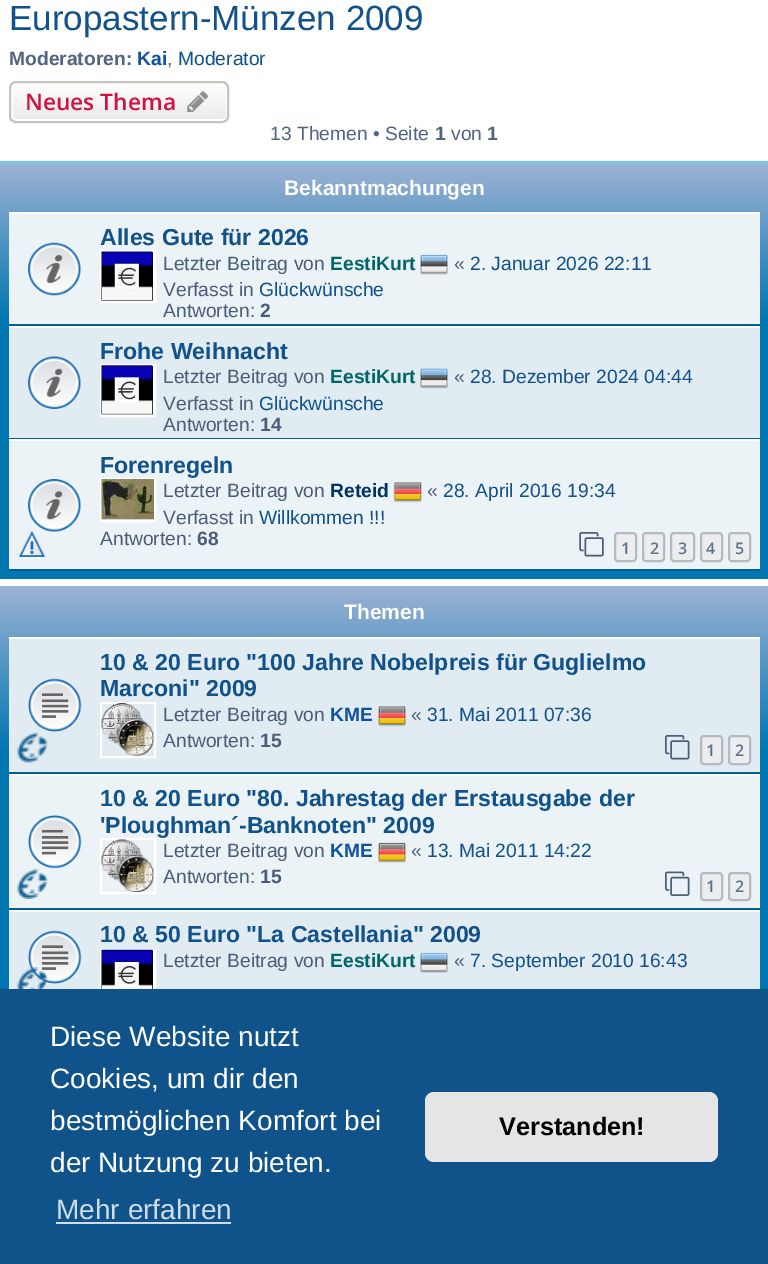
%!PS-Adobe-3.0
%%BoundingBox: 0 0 768 1264
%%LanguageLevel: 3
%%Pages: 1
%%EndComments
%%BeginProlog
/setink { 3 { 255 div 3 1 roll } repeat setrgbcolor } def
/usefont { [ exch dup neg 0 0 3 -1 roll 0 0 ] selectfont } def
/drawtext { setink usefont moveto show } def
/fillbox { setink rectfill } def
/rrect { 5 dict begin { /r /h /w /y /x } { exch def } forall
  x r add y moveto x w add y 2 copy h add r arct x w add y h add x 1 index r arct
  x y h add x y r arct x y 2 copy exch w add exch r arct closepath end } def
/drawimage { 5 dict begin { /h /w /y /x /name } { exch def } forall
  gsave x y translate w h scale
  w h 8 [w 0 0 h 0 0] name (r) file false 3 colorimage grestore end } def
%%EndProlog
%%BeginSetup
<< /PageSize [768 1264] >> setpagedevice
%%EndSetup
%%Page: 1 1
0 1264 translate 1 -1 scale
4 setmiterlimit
0 0 768 1264 255 255 255 fillbox
(Europastern-Münzen 2009) 9 30 /LiberationSans-Regular 35 16 82 137 drawtext
(Moderatoren:) 9 65 /LiberationSans-Bold 19.25 83 100 130 drawtext
(Kai) 137 65 /LiberationSans-Bold 19.25 16 80 160 drawtext
(,) 167 65 /LiberationSans-Regular 19.25 83 100 130 drawtext
(Moderator) 178 65 /LiberationSans-Regular 19.25 16 82 137 drawtext
gsave
9 81 220 42 7 rrect clip newpath
gsave 9 82 moveto 229 82 lineto 229 121 lineto 9 121 lineto closepath clip newpath
<< /ShadingType 2 /ColorSpace /DeviceRGB /Coords [119 82 119 121] /Extend [true true] /Function << /FunctionType 2 /Domain [0 1] /C0 [1 1 1] /C1 [0.914 0.914 0.914] /N 1 >> >> shfill grestore
grestore
255 255 255 setink
2 setlinewidth
12 83 215 37 4 rrect stroke
199 195 191 setink
10 82 218 40 6 rrect stroke
(Neues Thema) 25 110 /OpenSans-SemiBold 22.75 211 17 65 drawtext
(assets/img1.rgb) 187 91 21 21 drawimage
(13 Themen • Seite) 270 140 /LiberationSans-Regular 19.25 83 100 130 drawtext
(1) 435 140 /LiberationSans-Bold 19.25 83 100 130 drawtext
(von) 451 140 /LiberationSans-Regular 19.25 83 100 130 drawtext
(1) 487 140 /LiberationSans-Bold 19.25 83 100 130 drawtext
gsave 0 161 moveto 768 161 lineto 768 579 lineto 0 579 lineto closepath clip newpath
<< /ShadingType 2 /ColorSpace /DeviceRGB /Coords [384 161 384 579] /Extend [true true] /Function << /FunctionType 3 /Domain [0 1] /Functions [<< /FunctionType 2 /Domain [0 1] /C0 [0.416 0.808 1] /C1 [0.616 0.698 0.831] /N 1 >> << /FunctionType 2 /Domain [0 1] /C0 [0.616 0.698 0.831] /C1 [0 0.463 0.694] /N 1 >> << /FunctionType 2 /Domain [0 1] /C0 [0 0.463 0.694] /C1 [0 0.463 0.694] /N 1 >>] /Bounds [0.01 0.38] /Encode [0 1 0 1 0 1] >> >> shfill grestore
(Bekanntmachungen) 284 195 /LiberationSans-Bold 21 255 255 255 drawtext
9 214 751 110 236 243 247 fillbox
9 212 751 2 255 255 255 fillbox
9 324 751 2 0 96 143 fillbox
(assets/img2.rgb) 28 242 53 54 drawimage
(Alles Gute für 2026) 100 245 /LiberationSans-Bold 23.1 16 82 137 drawtext
255 255 255 setink
101 251 54 51 rectstroke
(assets/img3.rgb) 101 251 53 50 drawimage
(Letzter Beitrag von) 163 270 /LiberationSans-Regular 19.25 76 93 119 drawtext
(EestiKurt) 330 270 /LiberationSans-Bold 19.25 0 102 102 drawtext
(assets/img4.rgb) 420 254 28 21 drawimage
(«) 454 270 /LiberationSans-Regular 19.25 76 93 119 drawtext
(2. Januar 2026 22:11) 470 270 /LiberationSans-Regular 19.25 16 82 137 drawtext
(Verfasst in) 163 296 /LiberationSans-Regular 19.25 76 93 119 drawtext
(Glückwünsche) 259 296 /LiberationSans-Regular 19.25 16 82 137 drawtext
(Antworten:) 163 317 /LiberationSans-Regular 19.25 76 93 119 drawtext
(2) 260 317 /LiberationSans-Bold 19.25 76 93 119 drawtext
9 328 751 110 225 235 242 fillbox
9 326 751 2 255 255 255 fillbox
9 438 751 1 0 96 143 fillbox
(assets/img5.rgb) 28 356 53 53 drawimage
(Frohe Weihnacht) 100 359 /LiberationSans-Bold 23.1 16 82 137 drawtext
255 255 255 setink
101 365 54 51 rectstroke
(assets/img6.rgb) 101 365 53 50 drawimage
(Letzter Beitrag von) 163 383 /LiberationSans-Regular 19.25 76 93 119 drawtext
(EestiKurt) 330 383 /LiberationSans-Bold 19.25 0 102 102 drawtext
(assets/img7.rgb) 420 368 28 21 drawimage
(«) 454 383 /LiberationSans-Regular 19.25 76 93 119 drawtext
(28. Dezember 2024 04:44) 470 383 /LiberationSans-Regular 19.25 16 82 137 drawtext
(Verfasst in) 163 410 /LiberationSans-Regular 19.25 76 93 119 drawtext
(Glückwünsche) 259 410 /LiberationSans-Regular 19.25 16 82 137 drawtext
(Antworten:) 163 431 /LiberationSans-Regular 19.25 76 93 119 drawtext
(14) 260 431 /LiberationSans-Bold 19.25 76 93 119 drawtext
9 441 751 128 236 243 247 fillbox
9 439 751 2 255 255 255 fillbox
9 569 751 2 0 96 143 fillbox
(assets/img8.rgb) 28 479 53 53 drawimage
(assets/img9.rgb) 18 530 28 28 drawimage
(Forenregeln) 100 473 /LiberationSans-Bold 23.1 16 82 137 drawtext
255 255 255 setink
101 479 54 42 rectstroke
(assets/img10.rgb) 101 479 53 41 drawimage
(Letzter Beitrag von) 163 497 /LiberationSans-Regular 19.25 76 93 119 drawtext
(Reteid) 330 497 /LiberationSans-Bold 19.25 0 51 102 drawtext
(assets/img11.rgb) 393 482 29 21 drawimage
(«) 427 497 /LiberationSans-Regular 19.25 76 93 119 drawtext
(28. April 2016 19:34) 443 497 /LiberationSans-Regular 19.25 16 82 137 drawtext
(Verfasst in) 163 524 /LiberationSans-Regular 19.25 76 93 119 drawtext
(Willkommen !!!) 259 524 /LiberationSans-Regular 19.25 16 82 137 drawtext
(Antworten:) 100 545 /LiberationSans-Regular 19.25 76 93 119 drawtext
(68) 197 545 /LiberationSans-Bold 19.25 76 93 119 drawtext
(assets/img12.rgb) 579 532 25 25 drawimage
236 237 238 setink
615 533 21 28 3 rrect gsave fill grestore
180 186 192 setink
stroke
(1) 621 554 /OpenSans-SemiBold 16 92 117 140 drawtext
236 237 238 setink
643 533 21 28 3 rrect gsave fill grestore
180 186 192 setink
stroke
(2) 650 554 /OpenSans-SemiBold 16 92 117 140 drawtext
236 237 238 setink
671 533 23 28 3 rrect gsave fill grestore
180 186 192 setink
stroke
(3) 678 554 /OpenSans-SemiBold 16 92 117 140 drawtext
236 237 238 setink
701 533 21 28 3 rrect gsave fill grestore
180 186 192 setink
stroke
(4) 706 554 /OpenSans-SemiBold 16 92 117 140 drawtext
236 237 238 setink
729 533 21 28 3 rrect gsave fill grestore
180 186 192 setink
stroke
(5) 735 554 /OpenSans-SemiBold 16 92 117 140 drawtext
gsave 0 586 moveto 768 586 lineto 768 989 lineto 0 989 lineto closepath clip newpath
<< /ShadingType 2 /ColorSpace /DeviceRGB /Coords [384 586 384 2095] /Extend [true true] /Function << /FunctionType 3 /Domain [0 1] /Functions [<< /FunctionType 2 /Domain [0 1] /C0 [0.616 0.698 0.831] /C1 [0 0.463 0.694] /N 1 >> << /FunctionType 2 /Domain [0 1] /C0 [0 0.463 0.694] /C1 [0 0.463 0.694] /N 1 >>] /Bounds [0.11] /Encode [0 1 0 1] >> >> shfill grestore
(Themen) 344 619 /LiberationSans-Bold 21 255 255 255 drawtext
9 639 751 133 225 235 242 fillbox
9 637 751 2 255 255 255 fillbox
9 772 751 2 0 96 143 fillbox
(assets/img13.rgb) 28 678 54 54 drawimage
(assets/img14.rgb) 17 732 31 31 drawimage
(10 & 20 Euro "100 Jahre Nobelpreis für Guglielmo) 100 670 /LiberationSans-Bold 23.1 16 82 137 drawtext
(Marconi" 2009) 100 696 /LiberationSans-Bold 23.1 16 82 137 drawtext
255 255 255 setink
101 703 54 54 rectstroke
(assets/img15.rgb) 101 703 53 53 drawimage
(Letzter Beitrag von) 163 721 /LiberationSans-Regular 19.25 76 93 119 drawtext
(KME) 330 721 /LiberationSans-Bold 19.25 16 80 160 drawtext
(assets/img16.rgb) 378 706 28 21 drawimage
(«) 411 721 /LiberationSans-Regular 19.25 76 93 119 drawtext
(31. Mai 2011 07:36) 427 721 /LiberationSans-Regular 19.25 16 82 137 drawtext
(Antworten:) 163 747 /LiberationSans-Regular 19.25 76 93 119 drawtext
(15) 260 747 /LiberationSans-Bold 19.25 76 93 119 drawtext
(assets/img17.rgb) 665 735 25 25 drawimage
236 237 238 setink
701 736 21 28 3 rrect gsave fill grestore
180 186 192 setink
stroke
(1) 706 756 /OpenSans-SemiBold 16 92 117 140 drawtext
236 237 238 setink
729 736 21 28 3 rrect gsave fill grestore
180 186 192 setink
stroke
(2) 735 756 /OpenSans-SemiBold 16 92 117 140 drawtext
9 776 751 132 236 243 247 fillbox
9 774 751 2 255 255 255 fillbox
9 908 751 2 0 96 143 fillbox
(assets/img18.rgb) 28 815 54 54 drawimage
(assets/img19.rgb) 17 869 31 30 drawimage
(10 & 20 Euro "80. Jahrestag der Erstausgabe der) 100 806 /LiberationSans-Bold 23.1 16 82 137 drawtext
('Ploughman´-Banknoten" 2009) 100 833 /LiberationSans-Bold 23.1 16 82 137 drawtext
255 255 255 setink
101 839 54 54 rectstroke
(assets/img20.rgb) 101 839 53 53 drawimage
(Letzter Beitrag von) 163 857 /LiberationSans-Regular 19.25 76 93 119 drawtext
(KME) 330 857 /LiberationSans-Bold 19.25 16 80 160 drawtext
(assets/img21.rgb) 378 842 28 21 drawimage
(«) 411 857 /LiberationSans-Regular 19.25 76 93 119 drawtext
(13. Mai 2011 14:22) 427 857 /LiberationSans-Regular 19.25 16 82 137 drawtext
(Antworten:) 163 883 /LiberationSans-Regular 19.25 76 93 119 drawtext
(15) 260 883 /LiberationSans-Bold 19.25 76 93 119 drawtext
(assets/img22.rgb) 665 871 25 25 drawimage
236 237 238 setink
701 873 21 27 3 rrect gsave fill grestore
180 186 192 setink
stroke
(1) 706 892 /OpenSans-SemiBold 16 92 117 140 drawtext
236 237 238 setink
729 873 21 27 3 rrect gsave fill grestore
180 186 192 setink
stroke
(2) 735 892 /OpenSans-SemiBold 16 92 117 140 drawtext
9 912 751 77 225 235 242 fillbox
9 910 751 2 255 255 255 fillbox
(assets/img13.rgb) 28 930 54 54 drawimage
(assets/img23.rgb) 17 967 31 22 drawimage
(10 & 50 Euro "La Castellania" 2009) 100 942 /LiberationSans-Bold 23.1 16 82 137 drawtext
255 255 255 setink
101 950 54 50 rectstroke
(assets/img24.rgb) 101 949 53 40 drawimage
(Letzter Beitrag von) 163 967 /LiberationSans-Regular 19.25 76 93 119 drawtext
(EestiKurt) 330 967 /LiberationSans-Bold 19.25 0 102 102 drawtext
(assets/img25.rgb) 420 952 28 21 drawimage
(«) 454 967 /LiberationSans-Regular 19.25 76 93 119 drawtext
(7. September 2010 16:43) 470 967 /LiberationSans-Regular 19.25 16 82 137 drawtext
0 989 768 275 15 83 138 fillbox
(Diese Website nutzt) 50 1046 /LiberationSans-Regular 28 255 255 255 drawtext
(Cookies, um dir den) 50 1088 /LiberationSans-Regular 28 255 255 255 drawtext
(bestmöglichen Komfort bei) 50 1130 /LiberationSans-Regular 28 255 255 255 drawtext
(der Nutzung zu bieten.) 50 1172 /LiberationSans-Regular 28 255 255 255 drawtext
(Mehr erfahren) 56 1219 /LiberationSans-Regular 28 207 221 232 drawtext
56 1222 175 2 207 221 232 fillbox
229 229 229 setink
425 1092 293 70 9 rrect fill
(Verstanden!) 499 1135 /LiberationSans-Bold 25.25 0 0 0 drawtext
showpage
%%EOF
